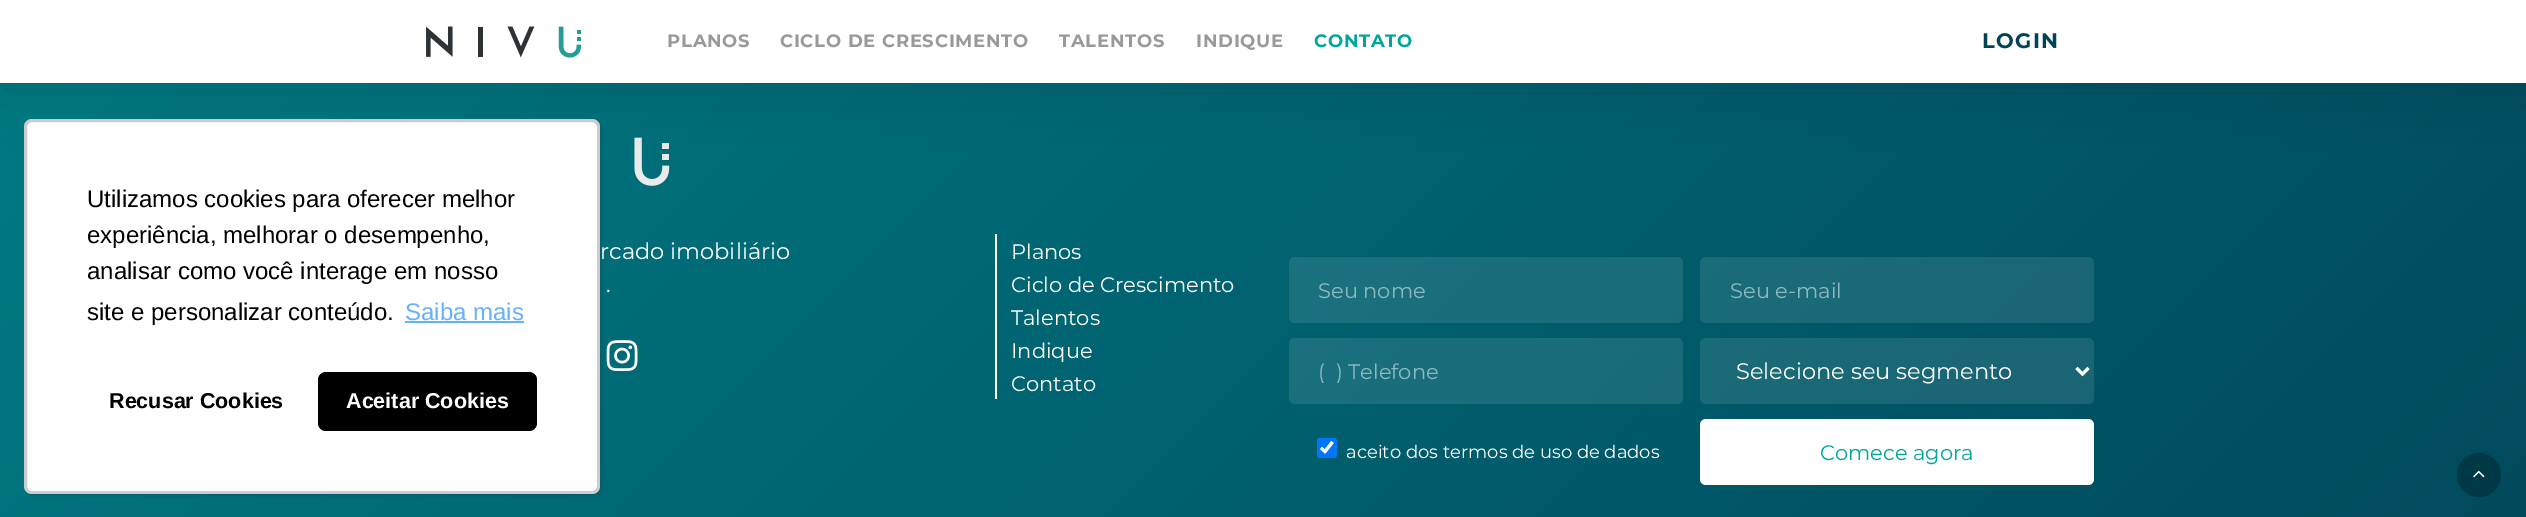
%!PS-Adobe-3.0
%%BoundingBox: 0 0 2526 517
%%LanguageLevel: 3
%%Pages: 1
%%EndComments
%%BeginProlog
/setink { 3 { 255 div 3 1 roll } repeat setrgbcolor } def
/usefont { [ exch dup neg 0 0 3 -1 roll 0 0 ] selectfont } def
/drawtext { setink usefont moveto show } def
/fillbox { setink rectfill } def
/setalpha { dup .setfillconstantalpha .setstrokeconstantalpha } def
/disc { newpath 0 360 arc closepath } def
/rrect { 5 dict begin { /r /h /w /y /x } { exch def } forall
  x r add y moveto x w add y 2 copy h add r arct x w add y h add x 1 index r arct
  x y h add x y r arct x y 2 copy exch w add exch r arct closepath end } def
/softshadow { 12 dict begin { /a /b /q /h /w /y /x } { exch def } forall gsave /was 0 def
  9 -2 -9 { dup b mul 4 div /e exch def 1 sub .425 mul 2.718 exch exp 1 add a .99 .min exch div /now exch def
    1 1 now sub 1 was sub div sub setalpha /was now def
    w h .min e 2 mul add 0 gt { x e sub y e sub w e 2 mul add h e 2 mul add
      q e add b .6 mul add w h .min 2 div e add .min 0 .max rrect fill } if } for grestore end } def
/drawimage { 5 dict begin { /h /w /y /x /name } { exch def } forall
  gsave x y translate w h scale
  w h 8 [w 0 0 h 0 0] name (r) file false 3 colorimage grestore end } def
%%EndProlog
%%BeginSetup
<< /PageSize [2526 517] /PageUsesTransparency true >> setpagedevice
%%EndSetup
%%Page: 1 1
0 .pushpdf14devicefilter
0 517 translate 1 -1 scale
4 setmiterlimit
0 0 2526 517 255 255 255 fillbox
gsave 0 83 moveto 2526 83 lineto 2526 517 lineto 0 517 lineto closepath clip newpath
<< /ShadingType 2 /ColorSpace /DeviceRGB /Coords [383 -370 2143 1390] /Extend [true true] /Function << /FunctionType 2 /Domain [0 1] /C0 [0 0.482 0.518] /C1 [0 0.259 0.337] /N 1 >> >> shfill grestore
(assets/img3.rgb) 606 340 32 31 drawimage
0 0 0 setink
26 122 576 375 8 3 0.1 softshadow
(assets/img2.rgb) 634 137 36 49 drawimage
0 5 2526 82 0 34 0.15 softshadow
255 255 255 setink
24 119 576 375 8 rrect fill
0.2 setalpha
0 0 0 setink
3 setlinewidth
25.5 120.5 573 372 6.5 rrect stroke
1 setalpha
(Utilizamos cookies para oferecer melhor) 87 207 /LiberationSans-Regular 24 0 0 0 drawtext
(experiência, melhorar o desempenho,) 87 243 /LiberationSans-Regular 24 0 0 0 drawtext
(analisar como você interage em nosso) 87 279 /LiberationSans-Regular 24 0 0 0 drawtext
(site e personalizar conteúdo.) 87 320 /LiberationSans-Regular 24 0 0 0 drawtext
(Saiba mais) 405 320 /LiberationSans-Regular 24 102 176 255 drawtext
405 321 119 2 102 176 255 fillbox
(Recusar Cookies) 109 408 /LiberationSans-Bold 21.5 0 0 0 drawtext
318 372 219 59 8 rrect fill
(Aceitar Cookies) 346 408 /LiberationSans-Bold 21.5 255 255 255 drawtext
0 0 2526 83 255 255 255 fillbox
(assets/img1.rgb) 426 26 156 32 drawimage
/Montserrat-Bold 18 usefont
153 153 153 setink
667 47 moveto 0.75 0 (PLANOS) ashow
780 47 moveto 0.75 0 (CICLO DE CRESCIMENTO) ashow
1059 47 moveto 0.75 0 (TALENTOS) ashow
1196 47 moveto 0.75 0 (INDIQUE) ashow
0 166 156 setink
1314 47 moveto 0.75 0 (CONTATO) ashow
/Montserrat-Bold 21 usefont
0 66 86 setink
1982 48 moveto 1.5 0 (LOGIN) ashow
(rcado imobiliário) 600 259 /Montserrat-Regular 22.5 255 255 255 drawtext
(.) 606 292 /Montserrat-Regular 22.5 255 255 255 drawtext
995 234 2 165 255 255 255 fillbox
(Planos) 1011 259 /Montserrat-Regular 21 255 255 255 drawtext
(Ciclo de Crescimento) 1011 292 /Montserrat-Regular 21 255 255 255 drawtext
(Talentos) 1011 325 /Montserrat-Regular 21 255 255 255 drawtext
(Indique) 1011 358 /Montserrat-Regular 21 255 255 255 drawtext
(Contato) 1011 391 /Montserrat-Regular 21 255 255 255 drawtext
0.1 setalpha
1289 257 394 66 6 rrect fill
1 setalpha
(Seu nome) 1318 298 /Montserrat-Regular 21 140 184 190 drawtext
0.1 setalpha
255 255 255 setink
1700 257 394 66 6 rrect fill
1 setalpha
(Seu e-mail) 1730 298 /Montserrat-Regular 21 140 184 190 drawtext
0.1 setalpha
255 255 255 setink
1289 338 394 66 6 rrect fill
1 setalpha
(\(  \) Telefone) 1318 379 /Montserrat-Regular 21 140 184 190 drawtext
0.1 setalpha
255 255 255 setink
1700 338 394 66 6 rrect fill
1 setalpha
2076.5 368 moveto 2082.5 374 lineto 2088.5 368 lineto stroke
(Selecione seu segmento) 1736 379 /Montserrat-Regular 22.5 255 255 255 drawtext
0 117 255 setink
1317 438 20 20 3 rrect fill
255 255 255 setink
3.1 setlinewidth
1321 448 moveto 1325 451.5 lineto 1332.5 442 lineto stroke
(aceito dos termos de uso de dados) 1346 458 /Montserrat-Regular 18 255 255 255 drawtext
1700 419 394 66 6 rrect fill
(Comece agora) 1820 460 /Montserrat-Regular 21 0 166 156 drawtext
0 57 70 setink
2479 475 22 disc fill
(assets/img4.rgb) 2473 470 12 8 drawimage
.poppdf14devicefilter showpage
%%EOF
